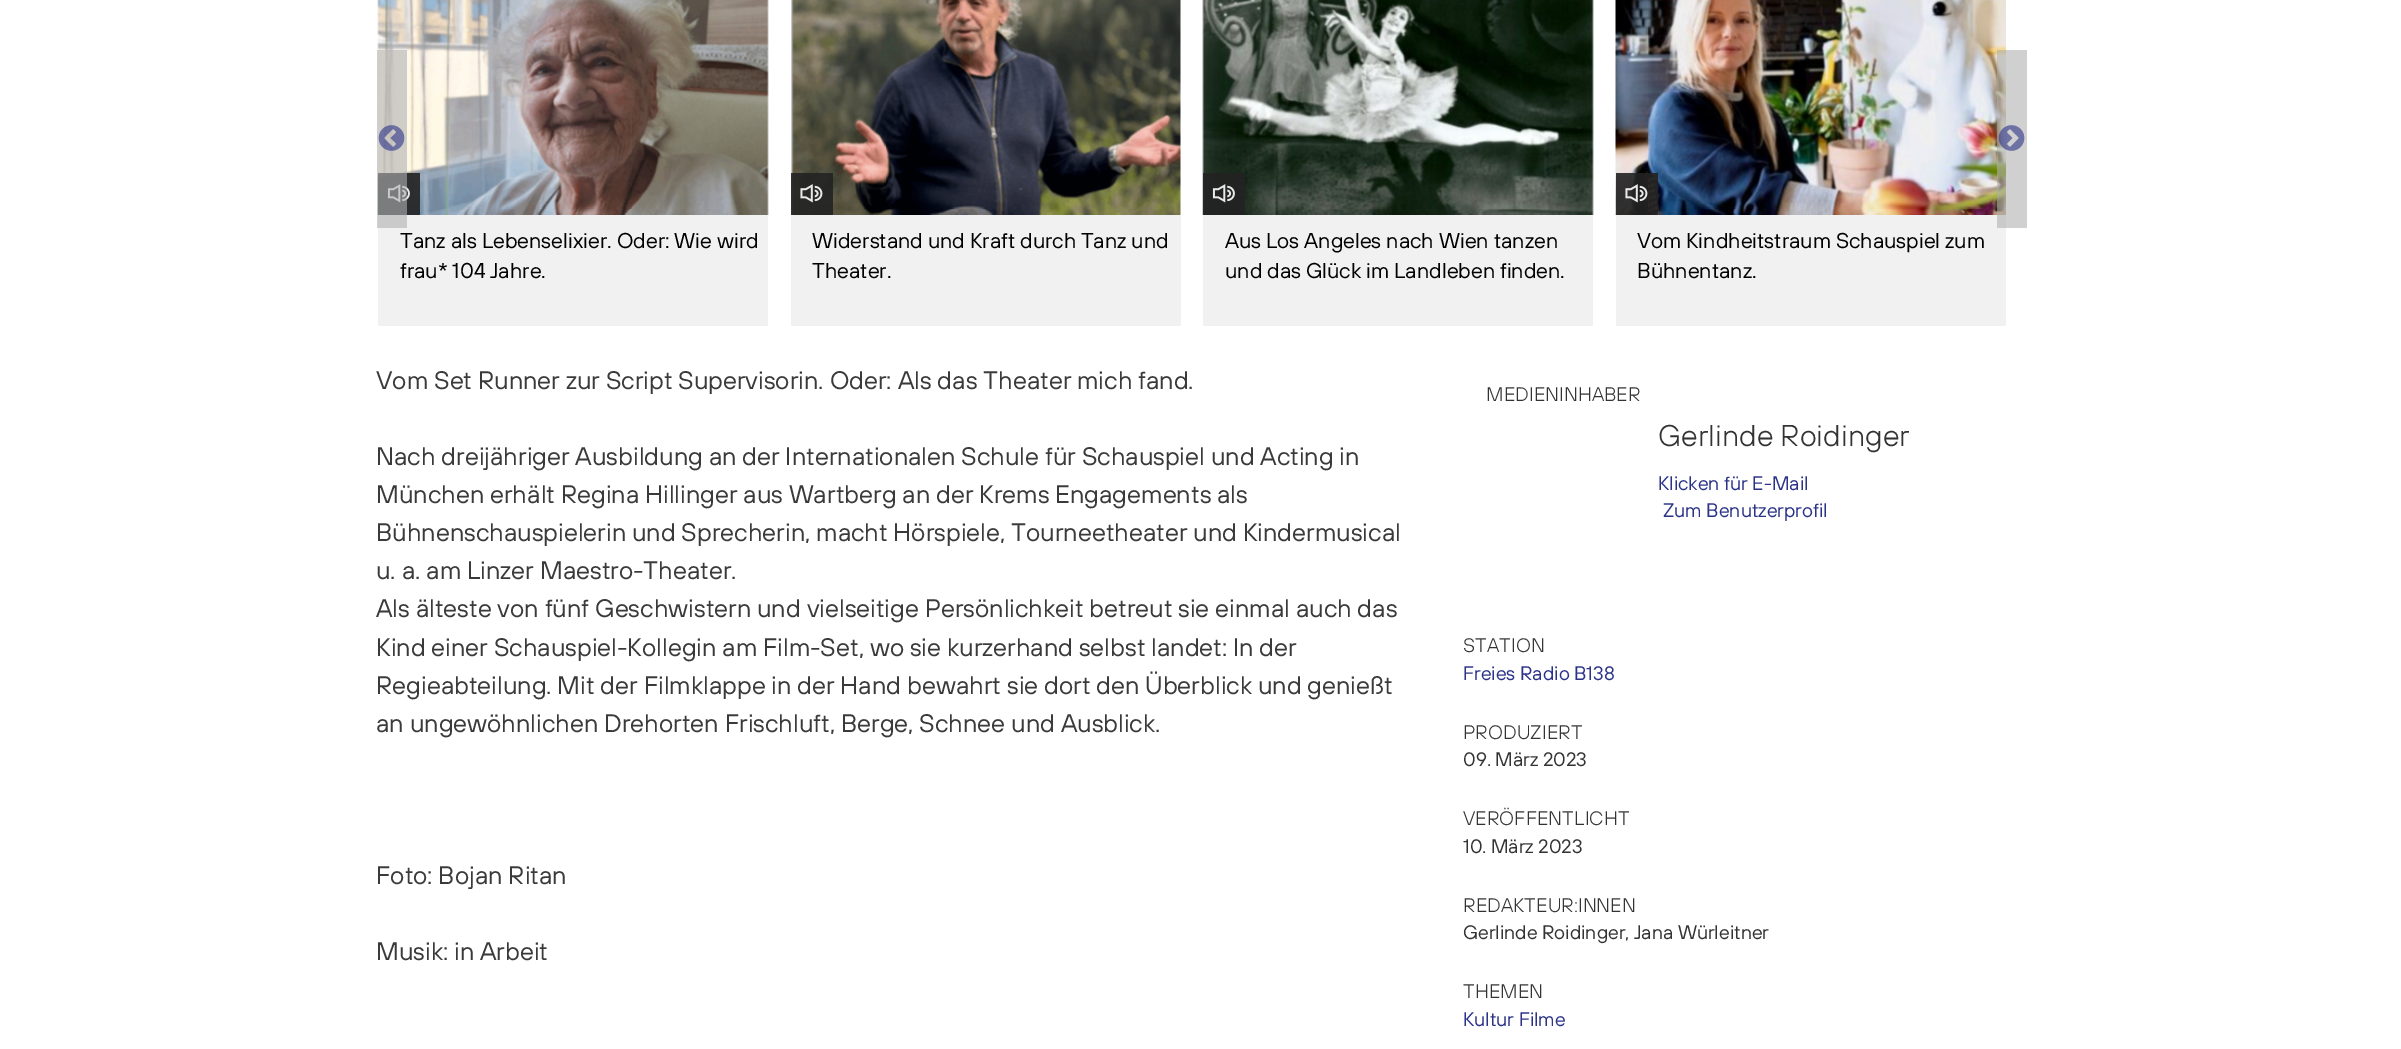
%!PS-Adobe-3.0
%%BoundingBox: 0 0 2401 1049
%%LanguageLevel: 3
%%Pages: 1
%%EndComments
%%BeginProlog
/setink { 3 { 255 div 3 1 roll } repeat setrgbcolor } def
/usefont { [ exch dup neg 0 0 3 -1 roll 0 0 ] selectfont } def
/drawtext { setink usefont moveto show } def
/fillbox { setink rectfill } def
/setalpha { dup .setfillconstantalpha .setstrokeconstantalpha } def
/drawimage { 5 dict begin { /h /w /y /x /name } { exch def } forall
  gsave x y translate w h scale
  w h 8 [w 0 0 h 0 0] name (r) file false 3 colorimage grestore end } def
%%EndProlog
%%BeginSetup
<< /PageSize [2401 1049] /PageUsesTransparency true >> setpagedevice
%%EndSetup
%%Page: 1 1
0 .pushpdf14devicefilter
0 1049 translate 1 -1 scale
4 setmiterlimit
0 0 2401 1049 255 255 255 fillbox
(assets/img3.rgb) 377 0 392 215 drawimage
0.9 setalpha
378 173 42 42 34 34 34 fillbox
1 setalpha
(assets/img4.rgb) 387 184 23 19 drawimage
378 215 390 111 241 241 241 fillbox
0.6 setalpha
377 50 30 178 176 176 176 fillbox
1 setalpha
(assets/img1.rgb) 378 125 27 26 drawimage
(assets/img9.rgb) 1615 0 391 215 drawimage
1616 215 390 111 241 241 241 fillbox
0.6 setalpha
1997 50 30 178 176 176 176 fillbox
1 setalpha
(assets/img2.rgb) 1998 125 27 26 drawimage
(Tanz als Lebenselixier. Oder: Wie wird) 400 248 /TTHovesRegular-Regular 21.5 0 0 0 drawtext
(frau* 104 Jahre.) 400 278 /TTHovesRegular-Regular 21.5 0 0 0 drawtext
791 0 3 215 230 230 230 fillbox
(assets/img5.rgb) 791 0 390 215 drawimage
0.9 setalpha
791 173 42 42 34 34 34 fillbox
1 setalpha
(assets/img6.rgb) 800 184 23 19 drawimage
791 215 390 111 241 241 241 fillbox
(Widerstand und Kraft durch Tanz und) 812 248 /TTHovesRegular-Regular 21.5 0 0 0 drawtext
(Theater.) 812 278 /TTHovesRegular-Regular 21.5 0 0 0 drawtext
(assets/img7.rgb) 1202 0 392 215 drawimage
0.9 setalpha
1203 173 42 42 34 34 34 fillbox
1 setalpha
(assets/img8.rgb) 1212 184 23 19 drawimage
1203 215 390 111 241 241 241 fillbox
(Aus Los Angeles nach Wien tanzen) 1225 248 /TTHovesRegular-Regular 21.5 0 0 0 drawtext
(und das Glück im Landleben finden.) 1225 278 /TTHovesRegular-Regular 21.5 0 0 0 drawtext
0.9 setalpha
1616 173 42 42 34 34 34 fillbox
1 setalpha
(assets/img10.rgb) 1625 184 23 19 drawimage
(Vom Kindheitstraum Schauspiel zum) 1637 248 /TTHovesRegular-Regular 21.5 0 0 0 drawtext
(Bühnentanz.) 1637 278 /TTHovesRegular-Regular 21.5 0 0 0 drawtext
(Vom Set Runner zur Script Supervisorin. Oder: Als das Theater mich fand.) 376 389 /TTHovesRegular-Regular 25.35 58 58 58 drawtext
(Nach dreijähriger Ausbildung an der Internationalen Schule für Schauspiel und Acting in) 376 465 /TTHovesRegular-Regular 25.35 58 58 58 drawtext
(München erhält Regina Hillinger aus Wartberg an der Krems Engagements als) 376 503 /TTHovesRegular-Regular 25.35 58 58 58 drawtext
(Bühnenschauspielerin und Sprecherin, macht Hörspiele, Tourneetheater und Kindermusical) 376 541 /TTHovesRegular-Regular 25.35 58 58 58 drawtext
(u. a. am Linzer Maestro-Theater.) 376 579 /TTHovesRegular-Regular 25.35 58 58 58 drawtext
(Als älteste von fünf Geschwistern und vielseitige Persönlichkeit betreut sie einmal auch das) 376 617 /TTHovesRegular-Regular 25.35 58 58 58 drawtext
(Kind einer Schauspiel-Kollegin am Film-Set, wo sie kurzerhand selbst landet: In der) 376 656 /TTHovesRegular-Regular 25.35 58 58 58 drawtext
(Regieabteilung. Mit der Filmklappe in der Hand bewahrt sie dort den Überblick und genießt) 376 694 /TTHovesRegular-Regular 25.35 58 58 58 drawtext
(an ungewöhnlichen Drehorten Frischluft, Berge, Schnee und Ausblick.) 376 732 /TTHovesRegular-Regular 25.35 58 58 58 drawtext
(Foto: Bojan Ritan) 376 884 /TTHovesRegular-Regular 25.35 58 58 58 drawtext
(Musik: in Arbeit) 376 960 /TTHovesRegular-Regular 25.35 58 58 58 drawtext
(MEDIENINHABER) 1486 401 /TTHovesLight-Regular 19.5 51 51 51 drawtext
(Gerlinde Roidinger) 1658 446 /TTHovesLight-Regular 30 51 51 51 drawtext
(Klicken für E-Mail) 1658 490 /TTHovesRegular-Regular 19.5 43 50 135 drawtext
(Zum Benutzerprofil) 1663 517 /TTHovesRegular-Regular 19.5 43 50 135 drawtext
(STATION) 1463 652 /TTHovesLight-Regular 19.5 51 51 51 drawtext
(Freies Radio B138) 1463 680 /TTHovesRegular-Regular 19.5 43 50 135 drawtext
(PRODUZIERT) 1463 739 /TTHovesLight-Regular 19.5 51 51 51 drawtext
(09. März 2023) 1463 766 /TTHovesRegular-Regular 19.5 51 51 51 drawtext
(VERÖFFENTLICHT) 1463 825 /TTHovesLight-Regular 19.5 51 51 51 drawtext
(10. März 2023) 1463 853 /TTHovesRegular-Regular 19.5 51 51 51 drawtext
(REDAKTEUR:INNEN) 1463 912 /TTHovesLight-Regular 19.5 51 51 51 drawtext
(Gerlinde Roidinger, Jana Würleitner) 1463 939 /TTHovesRegular-Regular 19.5 51 51 51 drawtext
(THEMEN) 1463 998 /TTHovesLight-Regular 19.5 51 51 51 drawtext
(Kultur Filme) 1463 1026 /TTHovesRegular-Regular 19.5 43 50 135 drawtext
.poppdf14devicefilter showpage
%%EOF
